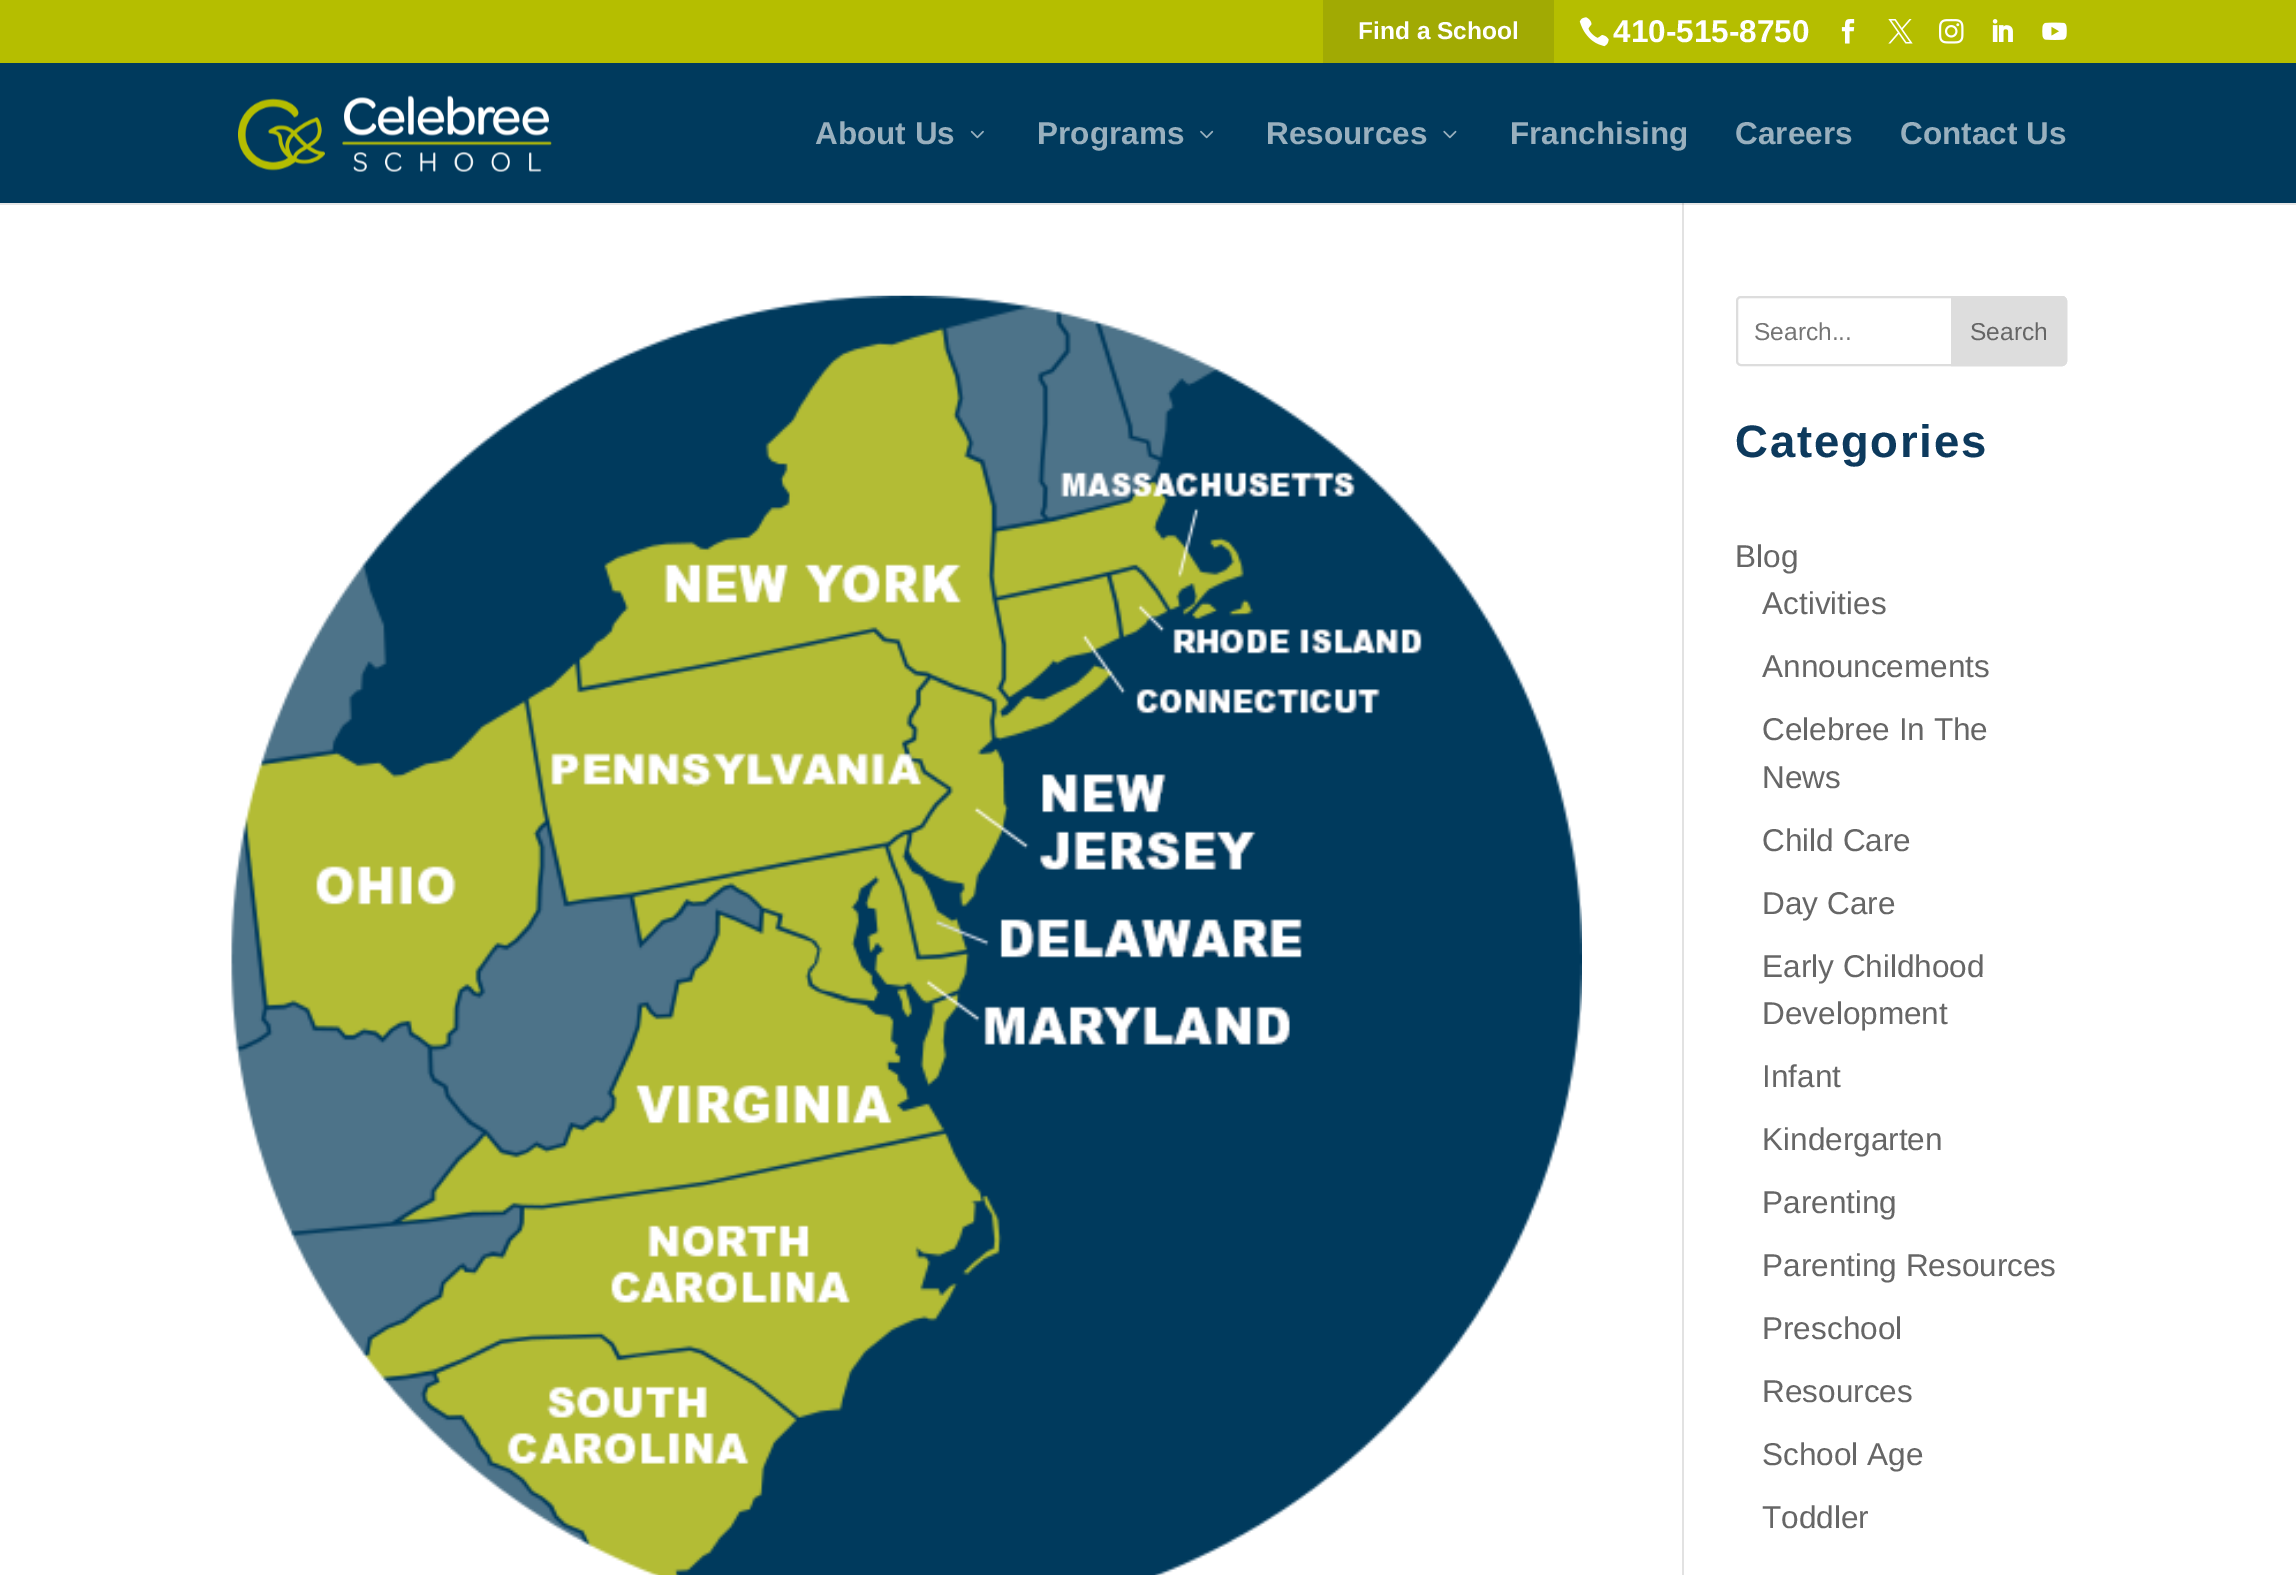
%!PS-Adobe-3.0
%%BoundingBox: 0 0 2296 1575
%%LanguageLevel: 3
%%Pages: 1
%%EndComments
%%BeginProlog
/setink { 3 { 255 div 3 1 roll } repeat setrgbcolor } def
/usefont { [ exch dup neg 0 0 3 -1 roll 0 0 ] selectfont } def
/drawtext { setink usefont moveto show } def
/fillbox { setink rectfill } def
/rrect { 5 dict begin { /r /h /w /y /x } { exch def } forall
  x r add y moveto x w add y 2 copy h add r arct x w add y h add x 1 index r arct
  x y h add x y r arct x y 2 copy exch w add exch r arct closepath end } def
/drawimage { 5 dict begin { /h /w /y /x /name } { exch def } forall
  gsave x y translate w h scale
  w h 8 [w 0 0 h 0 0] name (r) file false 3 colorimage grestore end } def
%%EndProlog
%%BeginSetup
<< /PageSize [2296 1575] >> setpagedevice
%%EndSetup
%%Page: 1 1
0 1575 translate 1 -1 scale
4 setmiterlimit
0 0 2296 1575 255 255 255 fillbox
0 203 2296 2 230 230 230 fillbox
0 0 2296 63 181 190 0 fillbox
1323 0 231 63 161 170 3 fillbox
(Find a School) 1358 39 /LiberationSans-Bold 24.5 255 255 255 drawtext
(assets/img1.rgb) 1579 17 30 30 drawimage
(410-515-8750) 1613 42 /LiberationSans-Bold 31.5 255 255 255 drawtext
(assets/img2.rgb) 1841 19 14 25 drawimage
(assets/img3.rgb) 1888 19 25 25 drawimage
(assets/img4.rgb) 1939 19 25 25 drawimage
(assets/img5.rgb) 1992 19 21 23 drawimage
(assets/img6.rgb) 2042 22 25 18 drawimage
0 63 2296 140 0 58 93 fillbox
(assets/img7.rgb) 238 95 314 77 drawimage
(About Us) 815 144 /LiberationSans-Bold 31.5 153 176 190 drawtext
(assets/img8.rgb) 970 130 14 9 drawimage
(Programs) 1037 144 /LiberationSans-Bold 31.5 153 176 190 drawtext
(assets/img9.rgb) 1200 130 14 9 drawimage
(Resources) 1266 144 /LiberationSans-Bold 31.5 153 176 190 drawtext
(assets/img10.rgb) 1443 130 14 9 drawimage
(Franchising) 1510 144 /LiberationSans-Bold 31.5 153 176 190 drawtext
(Careers) 1735 144 /LiberationSans-Bold 31.5 153 176 190 drawtext
(Contact Us) 1900 144 /LiberationSans-Bold 31.5 153 176 190 drawtext
1682 205 2 1370 226 226 226 fillbox
1682 203 2 2 203 203 203 fillbox
(assets/img11.rgb) 231 295 1351 1280 drawimage
221 221 221 setink
2 setlinewidth
1737 297 329 68 4 rrect stroke
(Search...) 1754 340 /LiberationSans-Regular 24.5 117 117 117 drawtext
221 221 221 setink
1952 297 moveto 2062 297 lineto 2064 297 2066 299 2066 301 curveto 2066 361 lineto 2066 363 2064 365 2062 365 curveto 1952 365 lineto closepath gsave fill grestore
stroke
(Search) 1970 340 /LiberationSans-Regular 24.5 102 102 102 drawtext
/LiberationSans-Bold 45.5 usefont
13 58 93 setink
1735 457 moveto 1.75 0 (Categories) ashow
(Blog) 1735 567 /LiberationSans-Regular 31.5 102 102 102 drawtext
(Activities) 1762 614 /LiberationSans-Regular 31.5 102 102 102 drawtext
(Announcements) 1762 677 /LiberationSans-Regular 31.5 102 102 102 drawtext
(Celebree In The) 1762 740 /LiberationSans-Regular 31.5 102 102 102 drawtext
(News) 1762 788 /LiberationSans-Regular 31.5 102 102 102 drawtext
(Child Care) 1762 851 /LiberationSans-Regular 31.5 102 102 102 drawtext
(Day Care) 1762 914 /LiberationSans-Regular 31.5 102 102 102 drawtext
(Early Childhood) 1762 977 /LiberationSans-Regular 31.5 102 102 102 drawtext
(Development) 1762 1024 /LiberationSans-Regular 31.5 102 102 102 drawtext
(Infant) 1762 1087 /LiberationSans-Regular 31.5 102 102 102 drawtext
(Kindergarten) 1762 1150 /LiberationSans-Regular 31.5 102 102 102 drawtext
(Parenting) 1762 1213 /LiberationSans-Regular 31.5 102 102 102 drawtext
(Parenting Resources) 1762 1276 /LiberationSans-Regular 31.5 102 102 102 drawtext
(Preschool) 1762 1339 /LiberationSans-Regular 31.5 102 102 102 drawtext
(Resources) 1762 1402 /LiberationSans-Regular 31.5 102 102 102 drawtext
(School Age) 1762 1465 /LiberationSans-Regular 31.5 102 102 102 drawtext
(Toddler) 1762 1528 /LiberationSans-Regular 31.5 102 102 102 drawtext
showpage
%%EOF
